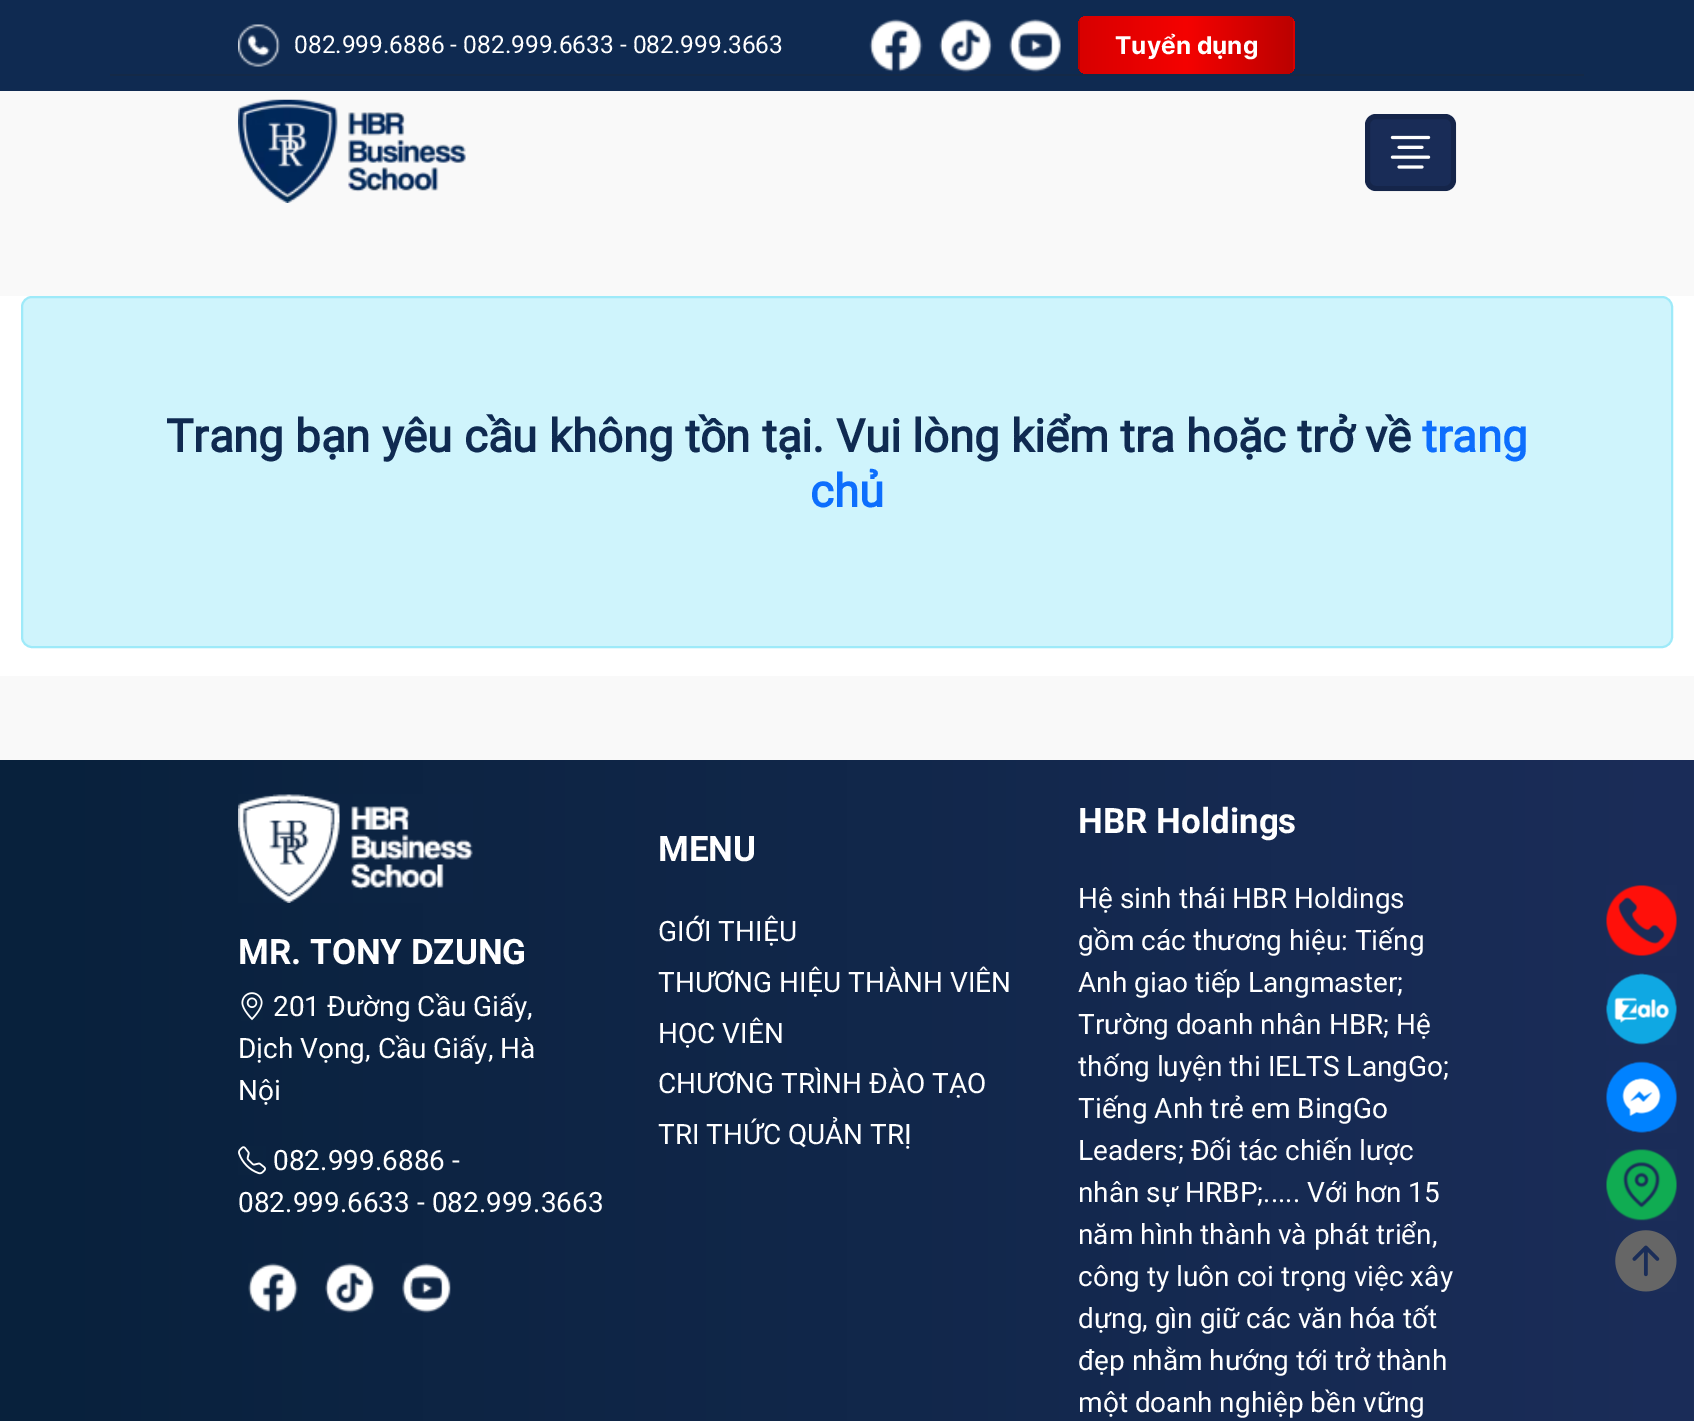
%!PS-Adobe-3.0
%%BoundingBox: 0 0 1694 1421
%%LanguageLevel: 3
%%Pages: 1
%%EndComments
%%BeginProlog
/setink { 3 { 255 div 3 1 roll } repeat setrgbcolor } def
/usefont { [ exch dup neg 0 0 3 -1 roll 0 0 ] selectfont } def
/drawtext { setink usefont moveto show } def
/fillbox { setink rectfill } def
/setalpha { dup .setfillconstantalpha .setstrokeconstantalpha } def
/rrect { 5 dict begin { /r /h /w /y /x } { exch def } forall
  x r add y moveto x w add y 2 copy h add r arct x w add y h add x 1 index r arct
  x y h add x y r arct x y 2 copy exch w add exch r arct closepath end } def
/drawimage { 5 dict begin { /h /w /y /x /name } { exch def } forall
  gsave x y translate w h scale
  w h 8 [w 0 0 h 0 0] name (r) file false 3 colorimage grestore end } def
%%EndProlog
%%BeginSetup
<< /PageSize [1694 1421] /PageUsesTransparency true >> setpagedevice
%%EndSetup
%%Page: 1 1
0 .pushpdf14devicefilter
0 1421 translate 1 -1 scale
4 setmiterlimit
0 0 1694 1421 249 249 249 fillbox
0 0 1694 91 15 42 81 fillbox
(assets/img1.rgb) 238 24 42 43 drawimage
(082.999.6886 - 082.999.6633 - 082.999.3663) 294 53 /Roboto-Regular 24.5 255 255 255 drawtext
(assets/img2.rgb) 869 19 54 53 drawimage
(assets/img3.rgb) 939 19 54 54 drawimage
(assets/img4.rgb) 1009 19 52 54 drawimage
gsave
1078 16 217 58 9 rrect clip newpath
gsave 1078 16 moveto 1080 16 lineto 1080 74 lineto 1078 74 lineto closepath clip newpath
<< /ShadingType 2 /ColorSpace /DeviceRGB /Coords [866 45 1080 45] /Extend [true true] /Function << /FunctionType 3 /Domain [0 1] /Functions [<< /FunctionType 2 /Domain [0 1] /C0 [0.847 0 0] /C1 [0.961 0.008 0] /N 1 >> << /FunctionType 2 /Domain [0 1] /C0 [0.961 0.008 0] /C1 [0.733 0.004 0] /N 1 >>] /Bounds [0.5] /Encode [0 1 0 1] >> >> shfill grestore
gsave 1080 16 moveto 1293 16 lineto 1293 74 lineto 1080 74 lineto closepath clip newpath
<< /ShadingType 2 /ColorSpace /DeviceRGB /Coords [1080 45 1293 45] /Extend [true true] /Function << /FunctionType 3 /Domain [0 1] /Functions [<< /FunctionType 2 /Domain [0 1] /C0 [0.847 0 0] /C1 [0.961 0.008 0] /N 1 >> << /FunctionType 2 /Domain [0 1] /C0 [0.961 0.008 0] /C1 [0.733 0.004 0] /N 1 >>] /Bounds [0.5] /Encode [0 1 0 1] >> >> shfill grestore
gsave 1293 16 moveto 1295 16 lineto 1295 74 lineto 1293 74 lineto closepath clip newpath
<< /ShadingType 2 /ColorSpace /DeviceRGB /Coords [1293 45 1507 45] /Extend [true true] /Function << /FunctionType 3 /Domain [0 1] /Functions [<< /FunctionType 2 /Domain [0 1] /C0 [0.847 0 0] /C1 [0.961 0.008 0] /N 1 >> << /FunctionType 2 /Domain [0 1] /C0 [0.961 0.008 0] /C1 [0.733 0.004 0] /N 1 >>] /Bounds [0.5] /Encode [0 1 0 1] >> >> shfill grestore
grestore
(Tuyển dụng) 1115 54 /Inter-Bold 24.5 255 255 255 drawtext
110 74 1474 2 20 41 71 fillbox
(assets/img5.rgb) 238 99 228 104 drawimage
25 44 87 setink
1365 114 91 77 11 rrect fill
0.15 setalpha
0 0 0 setink
5 setlinewidth
1367.5 116.5 86 72 8.5 rrect stroke
1 setalpha
(assets/img6.rgb) 1390 135 41 34 drawimage
0 296 1694 380 255 255 255 fillbox
207 244 252 setink
22 297 1650 350 10 rrect gsave fill grestore
158 234 249 setink
2 setlinewidth
stroke
(Trang bạn yêu cầu không tồn tại. Vui lòng kiểm tra hoặc trở về) 166 452 /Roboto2-Bold 45.5 15 42 81 drawtext
(trang) 1422 452 /Roboto2-Bold 45.5 13 110 253 drawtext
(chủ) 810 507 /Roboto2-Bold 45.5 13 110 253 drawtext
gsave 0 760 moveto 1694 760 lineto 1694 1421 lineto 0 1421 lineto closepath clip newpath
<< /ShadingType 2 /ColorSpace /DeviceRGB /Coords [0 1206 1694 1206] /Extend [true true] /Function << /FunctionType 2 /Domain [0 1] /C0 [0.031 0.129 0.235] /C1 [0.106 0.176 0.349] /N 1 >> >> shfill grestore
(assets/img7.rgb) 238 794 235 109 drawimage
(MR. TONY DZUNG) 238 964 /Roboto-Bold 35 255 255 255 drawtext
(assets/img8.rgb) 241 992 22 29 drawimage
(201 Đường Cầu Giấy,) 273 1016 /Roboto-Regular 28 255 255 255 drawtext
(Dịch Vọng, Cầu Giấy, Hà) 238 1058 /Roboto-Regular 28 255 255 255 drawtext
(Nội) 238 1100 /Roboto-Regular 28 255 255 255 drawtext
(assets/img9.rgb) 238 1146 28 29 drawimage
(082.999.6886 -) 273 1170 /Roboto-Regular 28 255 255 255 drawtext
(082.999.6633 - 082.999.3663) 238 1212 /Roboto-Regular 28 255 255 255 drawtext
(assets/img10.rgb) 248 1263 50 50 drawimage
(assets/img11.rgb) 325 1263 50 50 drawimage
(assets/img12.rgb) 402 1263 49 50 drawimage
(MENU) 658 861 /Roboto-Bold 35 255 255 255 drawtext
(GIỚI THIỆU) 658 941 /Roboto-Regular 28 255 255 255 drawtext
(THƯƠNG HIỆU THÀNH VIÊN) 658 992 /Roboto-Regular 28 255 255 255 drawtext
(HỌC VIÊN) 658 1043 /Roboto-Regular 28 255 255 255 drawtext
(CHƯƠNG TRÌNH ĐÀO TẠO) 658 1093 /Roboto-Regular 28 255 255 255 drawtext
(TRI THỨC QUẢN TRỊ) 658 1144 /Roboto-Regular 28 255 255 255 drawtext
(HBR Holdings) 1078 833 /Roboto-Bold 35 255 255 255 drawtext
(Hệ sinh thái HBR Holdings) 1078 908 /Roboto-Regular 28 255 255 255 drawtext
(gồm các thương hiệu: Tiếng) 1078 950 /Roboto-Regular 28 255 255 255 drawtext
(Anh giao tiếp Langmaster;) 1078 992 /Roboto-Regular 28 255 255 255 drawtext
(Trường doanh nhân HBR; Hệ) 1078 1034 /Roboto-Regular 28 255 255 255 drawtext
(thống luyện thi IELTS LangGo;) 1078 1076 /Roboto-Regular 28 255 255 255 drawtext
(Tiếng Anh trẻ em BingGo) 1078 1118 /Roboto-Regular 28 255 255 255 drawtext
(Leaders; Đối tác chiến lược) 1078 1160 /Roboto-Regular 28 255 255 255 drawtext
(nhân sự HRBP;..... Với hơn 15) 1078 1202 /Roboto-Regular 28 255 255 255 drawtext
(năm hình thành và phát triển,) 1078 1244 /Roboto-Regular 28 255 255 255 drawtext
(công ty luôn coi trọng việc xây) 1078 1286 /Roboto-Regular 28 255 255 255 drawtext
(dựng, gìn giữ các văn hóa tốt) 1078 1328 /Roboto-Regular 28 255 255 255 drawtext
(đẹp nhằm hướng tới trở thành) 1078 1370 /Roboto-Regular 28 255 255 255 drawtext
(một doanh nghiệp bền vững) 1078 1412 /Roboto-Regular 28 255 255 255 drawtext
(assets/img13.rgb) 1606 885 71 71 drawimage
(assets/img14.rgb) 1606 973 71 72 drawimage
(assets/img15.rgb) 1606 1061 71 72 drawimage
(assets/img16.rgb) 1606 1149 71 72 drawimage
(assets/img17.rgb) 1615 1230 62 62 drawimage
.poppdf14devicefilter showpage
%%EOF
